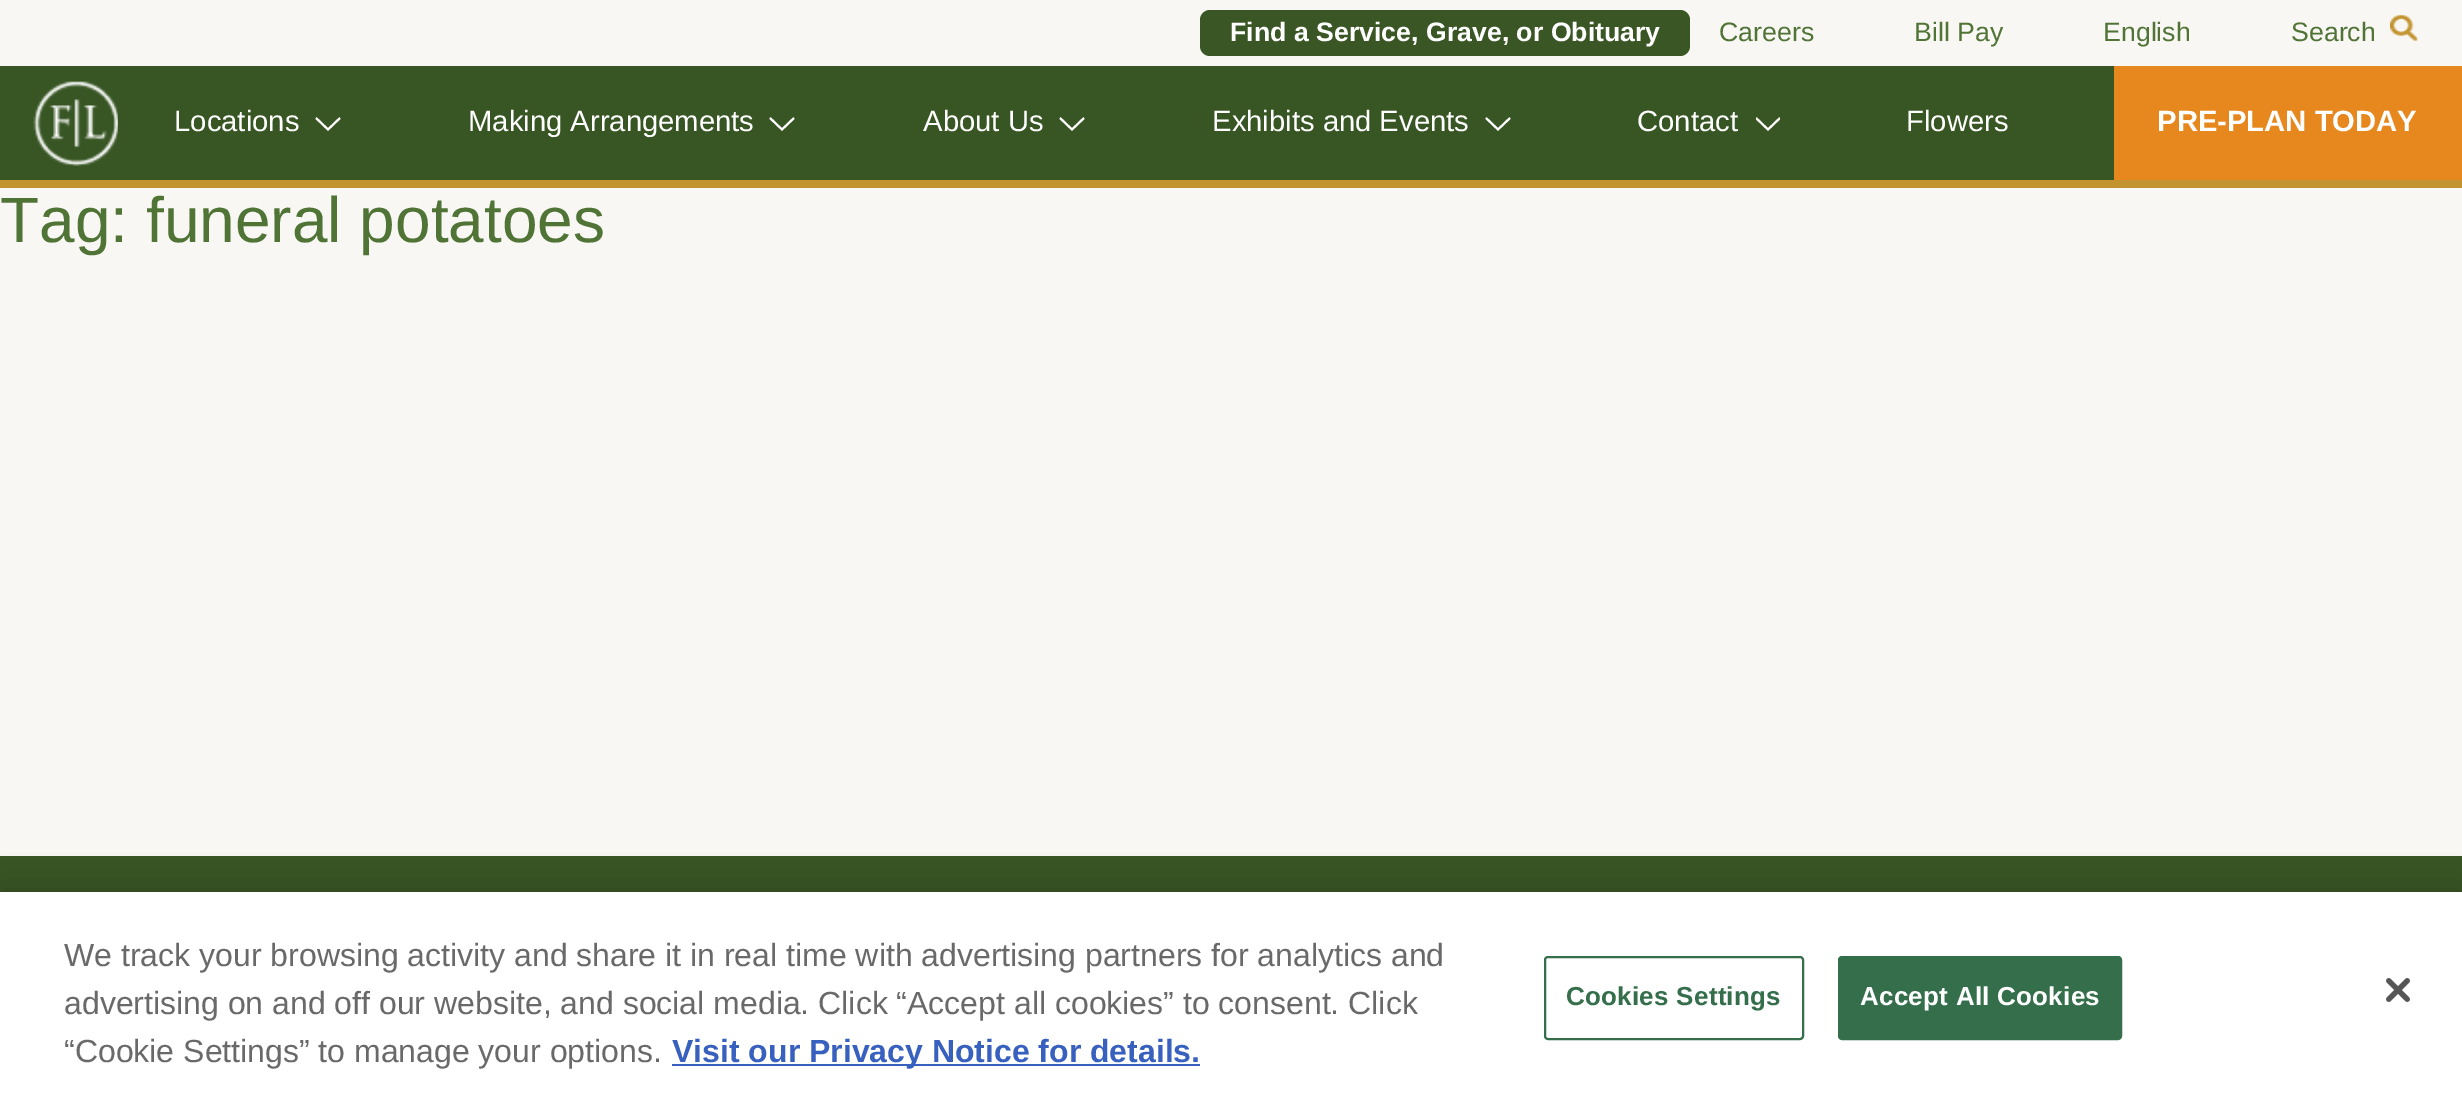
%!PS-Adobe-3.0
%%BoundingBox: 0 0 2462 1095
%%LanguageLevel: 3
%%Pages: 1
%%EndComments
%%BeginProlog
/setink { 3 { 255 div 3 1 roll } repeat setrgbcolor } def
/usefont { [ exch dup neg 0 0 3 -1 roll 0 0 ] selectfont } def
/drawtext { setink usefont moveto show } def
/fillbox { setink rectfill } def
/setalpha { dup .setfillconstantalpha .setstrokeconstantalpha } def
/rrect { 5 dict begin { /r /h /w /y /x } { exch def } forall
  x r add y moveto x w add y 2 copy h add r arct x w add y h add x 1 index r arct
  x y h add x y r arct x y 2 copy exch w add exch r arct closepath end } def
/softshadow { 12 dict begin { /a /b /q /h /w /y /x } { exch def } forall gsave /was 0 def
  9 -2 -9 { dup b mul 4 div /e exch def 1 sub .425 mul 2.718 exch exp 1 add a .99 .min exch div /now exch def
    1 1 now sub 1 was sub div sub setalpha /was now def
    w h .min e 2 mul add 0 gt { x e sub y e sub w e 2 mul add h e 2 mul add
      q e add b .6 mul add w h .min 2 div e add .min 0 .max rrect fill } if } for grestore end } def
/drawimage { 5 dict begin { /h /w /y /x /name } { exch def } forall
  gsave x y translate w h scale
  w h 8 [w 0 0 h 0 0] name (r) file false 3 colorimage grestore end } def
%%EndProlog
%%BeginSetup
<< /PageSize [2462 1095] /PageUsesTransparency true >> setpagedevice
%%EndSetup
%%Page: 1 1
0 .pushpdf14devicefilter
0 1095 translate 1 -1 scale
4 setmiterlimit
0 0 2462 1095 249 247 243 fillbox
0 66 2114 114 56 86 36 fillbox
(assets/img1.rgb) 33 81 85 85 drawimage
58 86 37 setink
1200 10 490 46 10 rrect fill
(Find a Service, Grave, or Obituary) 1230 41 /LiberationSans-Bold 26.7 255 255 255 drawtext
(Careers) 1719 41 /LiberationSans-Regular 26.7 80 115 54 drawtext
(Bill Pay) 1914 41 /LiberationSans-Regular 26.7 80 115 54 drawtext
(English) 2103 41 /LiberationSans-Regular 26.7 80 115 54 drawtext
(Search) 2291 41 /LiberationSans-Regular 26.7 80 115 54 drawtext
(assets/img2.rgb) 2390 15 28 26 drawimage
0 180 2462 8 194 147 47 fillbox
(Locations) 174 131 /LiberationSans-Regular 29.25 255 255 255 drawtext
2 setlinewidth
316 118 moveto 328 129.5 lineto 340 118 lineto stroke
(Making Arrangements) 468 131 /LiberationSans-Regular 29.25 255 255 255 drawtext
770 118 moveto 782 129.5 lineto 794 118 lineto stroke
(About Us) 923 131 /LiberationSans-Regular 29.25 255 255 255 drawtext
1060 118 moveto 1072 129.5 lineto 1084 118 lineto stroke
(Exhibits and Events) 1212 131 /LiberationSans-Regular 29.25 255 255 255 drawtext
1486 118 moveto 1498 129.5 lineto 1510 118 lineto stroke
(Contact) 1637 131 /LiberationSans-Regular 29.25 255 255 255 drawtext
gsave
1756 116 24 16 rectclip
1756 118 moveto 1768 129.5 lineto 1780 118 lineto stroke
grestore
(Flowers) 1906 131 /LiberationSans-Regular 29.25 255 255 255 drawtext
2114 66 348 114 230 136 29 fillbox
(PRE-PLAN TODAY) 2157 131 /LiberationSans-Bold 29.25 255 255 255 drawtext
(Tag: funeral potatoes) 0 242 /LiberationSans-Regular 64 80 115 54 drawtext
0 856 2462 36 56 86 36 fillbox
0 0 0 setink
0 892 2462 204 0 18 0.2 softshadow
0 892 2462 203 255 255 255 fillbox
(We track your browsing activity and share it in real time with advertising partners for analytics and) 64 966 /LiberationSans-Regular 32 105 105 105 drawtext
(advertising on and off our website, and social media. Click “Accept all cookies” to consent. Click) 64 1014 /LiberationSans-Regular 32 105 105 105 drawtext
(“Cookie Settings” to manage your options.) 64 1062 /LiberationSans-Regular 32 105 105 105 drawtext
672 1064 528 2 56 96 190 fillbox
(Visit our Privacy Notice for details.) 672 1062 /LiberationSans-Bold 32 56 96 190 drawtext
52 110 74 setink
1545 957 258 82 3 rrect stroke
/LiberationSans-Bold 26 usefont
1566 1005 moveto 0.25 0 (Cookies Settings) ashow
1839 957 282 82 3 rrect gsave fill grestore
stroke
255 255 255 setink
1860 1005 moveto 0.25 0 (Accept All Cookies) ashow
(assets/img3.rgb) 2386 978 24 24 drawimage
.poppdf14devicefilter showpage
%%EOF
